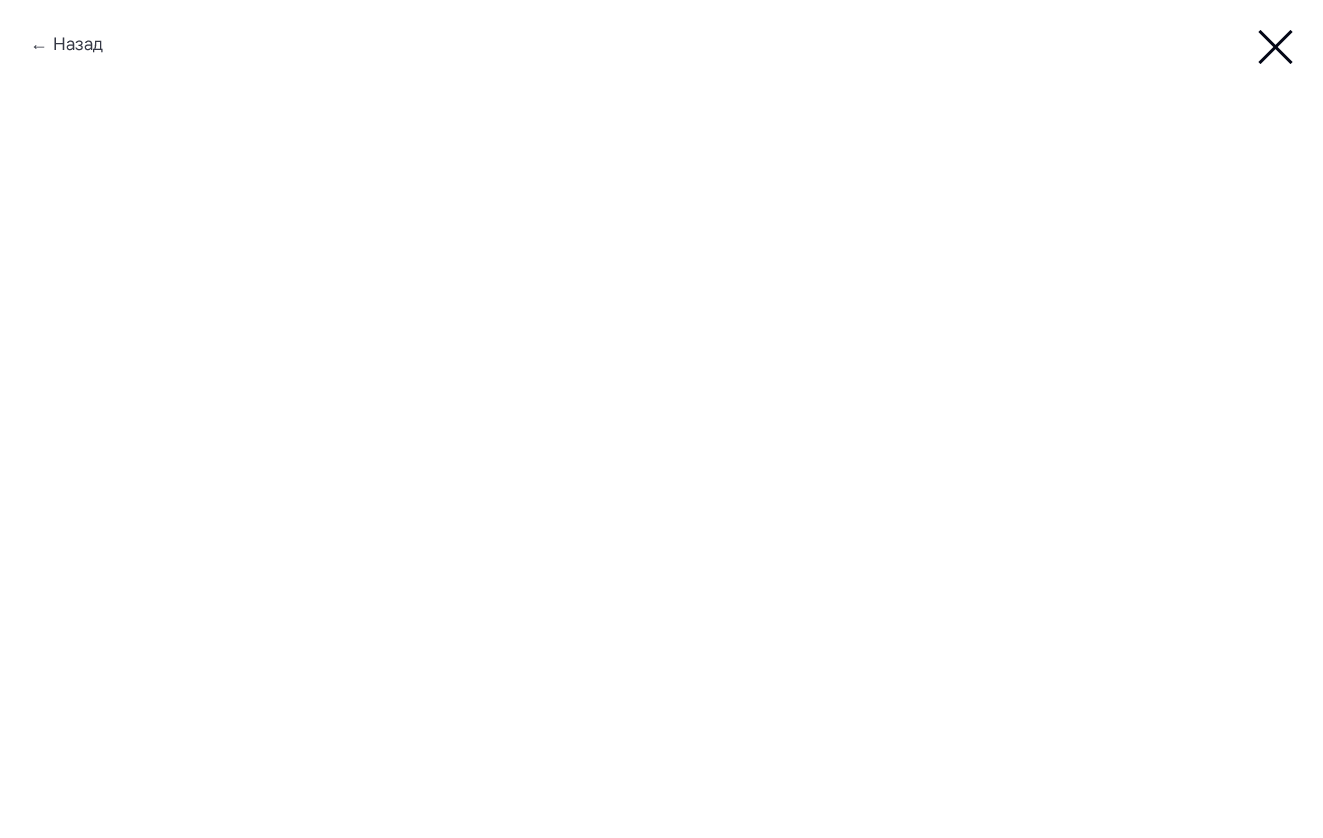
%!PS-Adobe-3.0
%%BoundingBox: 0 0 1323 838
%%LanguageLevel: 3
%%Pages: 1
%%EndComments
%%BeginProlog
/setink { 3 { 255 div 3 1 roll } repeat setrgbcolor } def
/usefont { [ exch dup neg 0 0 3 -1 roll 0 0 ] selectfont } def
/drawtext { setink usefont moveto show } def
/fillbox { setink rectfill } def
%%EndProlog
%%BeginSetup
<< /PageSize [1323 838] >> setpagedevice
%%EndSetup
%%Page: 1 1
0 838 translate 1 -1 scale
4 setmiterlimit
0 0 1323 838 255 255 255 fillbox
(←) 30 50 /LiberationSans-Regular 18 53 56 69 drawtext
(Назад) 53 50 /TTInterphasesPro-Regular 18 53 56 69 drawtext
3 6 22 setink
1258.5 32 moveto 1260.5 30 lineto 1292.5 62 lineto 1290.5 64 lineto closepath eofill
1290.5 30 moveto 1292.5 32 lineto 1260.5 64 lineto 1258.5 62 lineto closepath eofill
showpage
%%EOF
